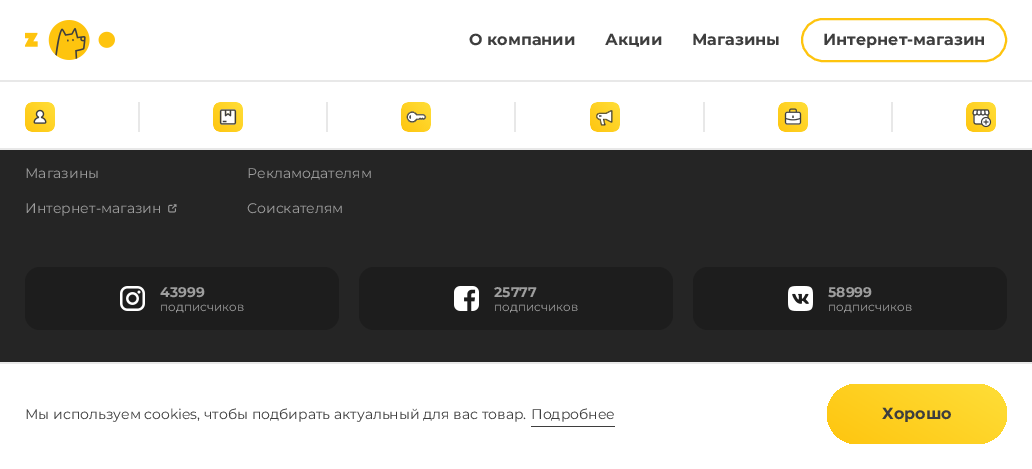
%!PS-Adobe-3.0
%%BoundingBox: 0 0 1032 469
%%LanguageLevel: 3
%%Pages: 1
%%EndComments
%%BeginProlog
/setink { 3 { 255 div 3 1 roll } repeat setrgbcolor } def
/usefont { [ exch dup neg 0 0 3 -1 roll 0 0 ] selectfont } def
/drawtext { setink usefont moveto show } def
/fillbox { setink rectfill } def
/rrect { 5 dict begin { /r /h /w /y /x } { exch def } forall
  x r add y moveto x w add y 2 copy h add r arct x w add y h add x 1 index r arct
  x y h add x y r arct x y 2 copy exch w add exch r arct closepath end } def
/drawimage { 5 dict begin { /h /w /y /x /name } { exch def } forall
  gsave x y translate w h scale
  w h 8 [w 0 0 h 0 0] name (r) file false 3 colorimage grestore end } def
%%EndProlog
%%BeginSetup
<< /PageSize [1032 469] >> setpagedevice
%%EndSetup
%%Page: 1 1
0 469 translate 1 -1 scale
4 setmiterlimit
0 0 1032 469 37 37 37 fillbox
0 0 1032 80 255 255 255 fillbox
(assets/img1.rgb) 25 20 90 40 drawimage
(О компании) 469 45 /Montserrat-Bold 16 62 62 62 drawtext
(Акции) 605 45 /Montserrat-Bold 16 62 62 62 drawtext
(Магазины) 692 45 /Montserrat-Bold 16 62 62 62 drawtext
254 196 14 setink
2 setlinewidth
802 19 204 42 21 rrect stroke
(Интернет-магазин) 823 45 /Montserrat-Bold 16 62 62 62 drawtext
0 82 1032 66 255 255 255 fillbox
0 80 1032 2 232 232 232 fillbox
0 148 1032 2 232 232 232 fillbox
(assets/img2.rgb) 25 102 30 30 drawimage
138 102 2 30 232 232 232 fillbox
(assets/img3.rgb) 213 102 30 30 drawimage
326 102 2 30 232 232 232 fillbox
(assets/img4.rgb) 401 102 30 30 drawimage
514 102 2 30 232 232 232 fillbox
(assets/img5.rgb) 590 102 30 30 drawimage
703 102 2 30 232 232 232 fillbox
(assets/img6.rgb) 778 102 30 30 drawimage
891 102 2 30 232 232 232 fillbox
(assets/img7.rgb) 966 102 30 30 drawimage
(Магазины) 25 178 /Montserrat-Regular 14 158 158 158 drawtext
(Интернет-магазин) 25 213 /Montserrat-Regular 14 158 158 158 drawtext
(assets/img8.rgb) 168 204 9 9 drawimage
(Рекламодателям) 247 178 /Montserrat-Regular 14 158 158 158 drawtext
(Соискателям) 247 213 /Montserrat-Regular 14 158 158 158 drawtext
29 29 29 setink
25 267 314 63 15 rrect fill
(assets/img9.rgb) 120 286 25 25 drawimage
(43999) 160 297 /Montserrat-Bold 14 158 158 158 drawtext
(подписчиков) 160 311 /Montserrat-Regular 12 158 158 158 drawtext
29 29 29 setink
359 267 314 63 15 rrect fill
(assets/img10.rgb) 454 286 25 25 drawimage
(25777) 494 297 /Montserrat-Bold 14 158 158 158 drawtext
(подписчиков) 494 311 /Montserrat-Regular 12 158 158 158 drawtext
29 29 29 setink
693 267 314 63 15 rrect fill
(assets/img11.rgb) 788 286 25 25 drawimage
(58999) 828 297 /Montserrat-Bold 14 158 158 158 drawtext
(подписчиков) 828 311 /Montserrat-Regular 12 158 158 158 drawtext
0 364 1032 105 255 255 255 fillbox
0 362 1032 2 232 232 232 fillbox
(Мы используем cookies, чтобы подбирать актуальный для вас товар.) 25 419 /Montserrat-Regular 14 62 62 62 drawtext
531 426 84 1 62 62 62 fillbox
(Подробнее) 531 419 /Montserrat-Regular 14 62 62 62 drawtext
gsave 827 384 180 60 30 rrect clip newpath
<< /ShadingType 2 /ColorSpace /DeviceRGB /Coords [957 347 879 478] /Extend [true true] /Function << /FunctionType 2 /Domain [0 1] /C0 [1 0.875 0.227] /C1 [0.996 0.769 0.055] /N 1 >> >> shfill grestore
(Хорошо) 882 419 /Montserrat-Bold 16 62 62 62 drawtext
showpage
%%EOF
